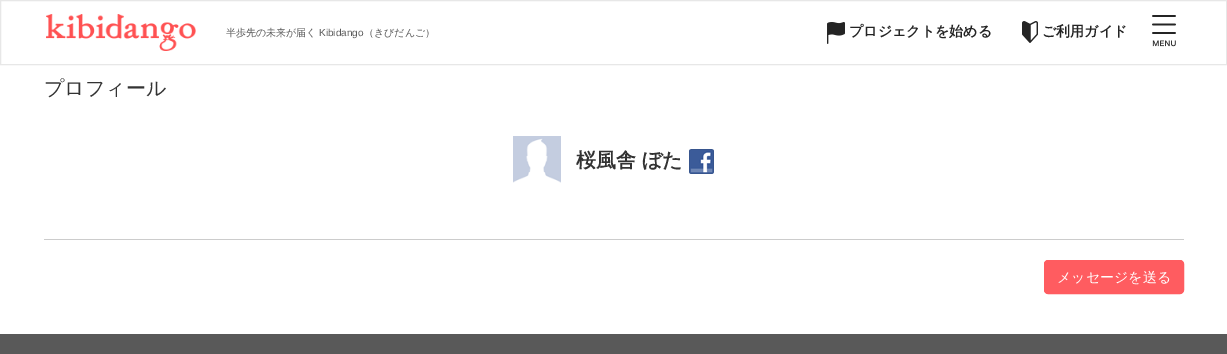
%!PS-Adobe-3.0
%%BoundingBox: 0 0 1227 354
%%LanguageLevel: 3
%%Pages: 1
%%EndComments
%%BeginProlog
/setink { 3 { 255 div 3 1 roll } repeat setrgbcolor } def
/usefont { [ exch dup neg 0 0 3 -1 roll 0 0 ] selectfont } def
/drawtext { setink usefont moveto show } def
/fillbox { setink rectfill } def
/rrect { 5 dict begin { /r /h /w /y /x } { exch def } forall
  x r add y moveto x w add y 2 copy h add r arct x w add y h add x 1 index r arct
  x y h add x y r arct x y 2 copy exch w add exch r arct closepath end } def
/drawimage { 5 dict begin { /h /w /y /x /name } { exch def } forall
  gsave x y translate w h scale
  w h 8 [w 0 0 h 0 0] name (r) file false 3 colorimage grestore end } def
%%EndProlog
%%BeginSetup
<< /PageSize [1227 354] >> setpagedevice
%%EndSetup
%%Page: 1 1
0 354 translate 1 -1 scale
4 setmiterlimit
0 0 1227 354 255 255 255 fillbox
231 231 231 setink
0.5 0.5 1226 64 rectstroke
(assets/img1.rgb) 46 14 150 37 drawimage
(半歩先の未来が届く) 226 36 /WenQuanYiZenHei-Medium 10 89 89 89 drawtext
(Kibidango) 319 36 /LiberationSans-Regular 10 89 89 89 drawtext
(（きびだんご）) 364 36 /WenQuanYiZenHei-Medium 10 89 89 89 drawtext
(assets/img2.rgb) 827 22 18 22 drawimage
(プロジェクトを始める) 849 36 /WenQuanYiZenHei-Bold 14 36 36 36 drawtext
(assets/img3.rgb) 1022 21 16 22 drawimage
(ご利用ガイド) 1042 36 /WenQuanYiZenHei-Bold 14 36 36 36 drawtext
(assets/img4.rgb) 1152 15 24 32 drawimage
(プロフィール) 44 95 /WenQuanYiZenHei-Medium 20 51 51 51 drawtext
44 239 1140 1 204 204 204 fillbox
(assets/img5.rgb) 513 136 48 47 drawimage
(桜風舎 ぼた) 576 167 /WenQuanYiZenHei-Bold 20 51 51 51 drawtext
(assets/img6.rgb) 689 149 25 25 drawimage
255 92 96 setink
1044.5 260.5 139 33 3.5 rrect gsave fill grestore
stroke
(メッセージを送る) 1057 282 /WenQuanYiZenHei-Medium 14 255 255 255 drawtext
0 334 1227 20 89 89 89 fillbox
showpage
%%EOF
